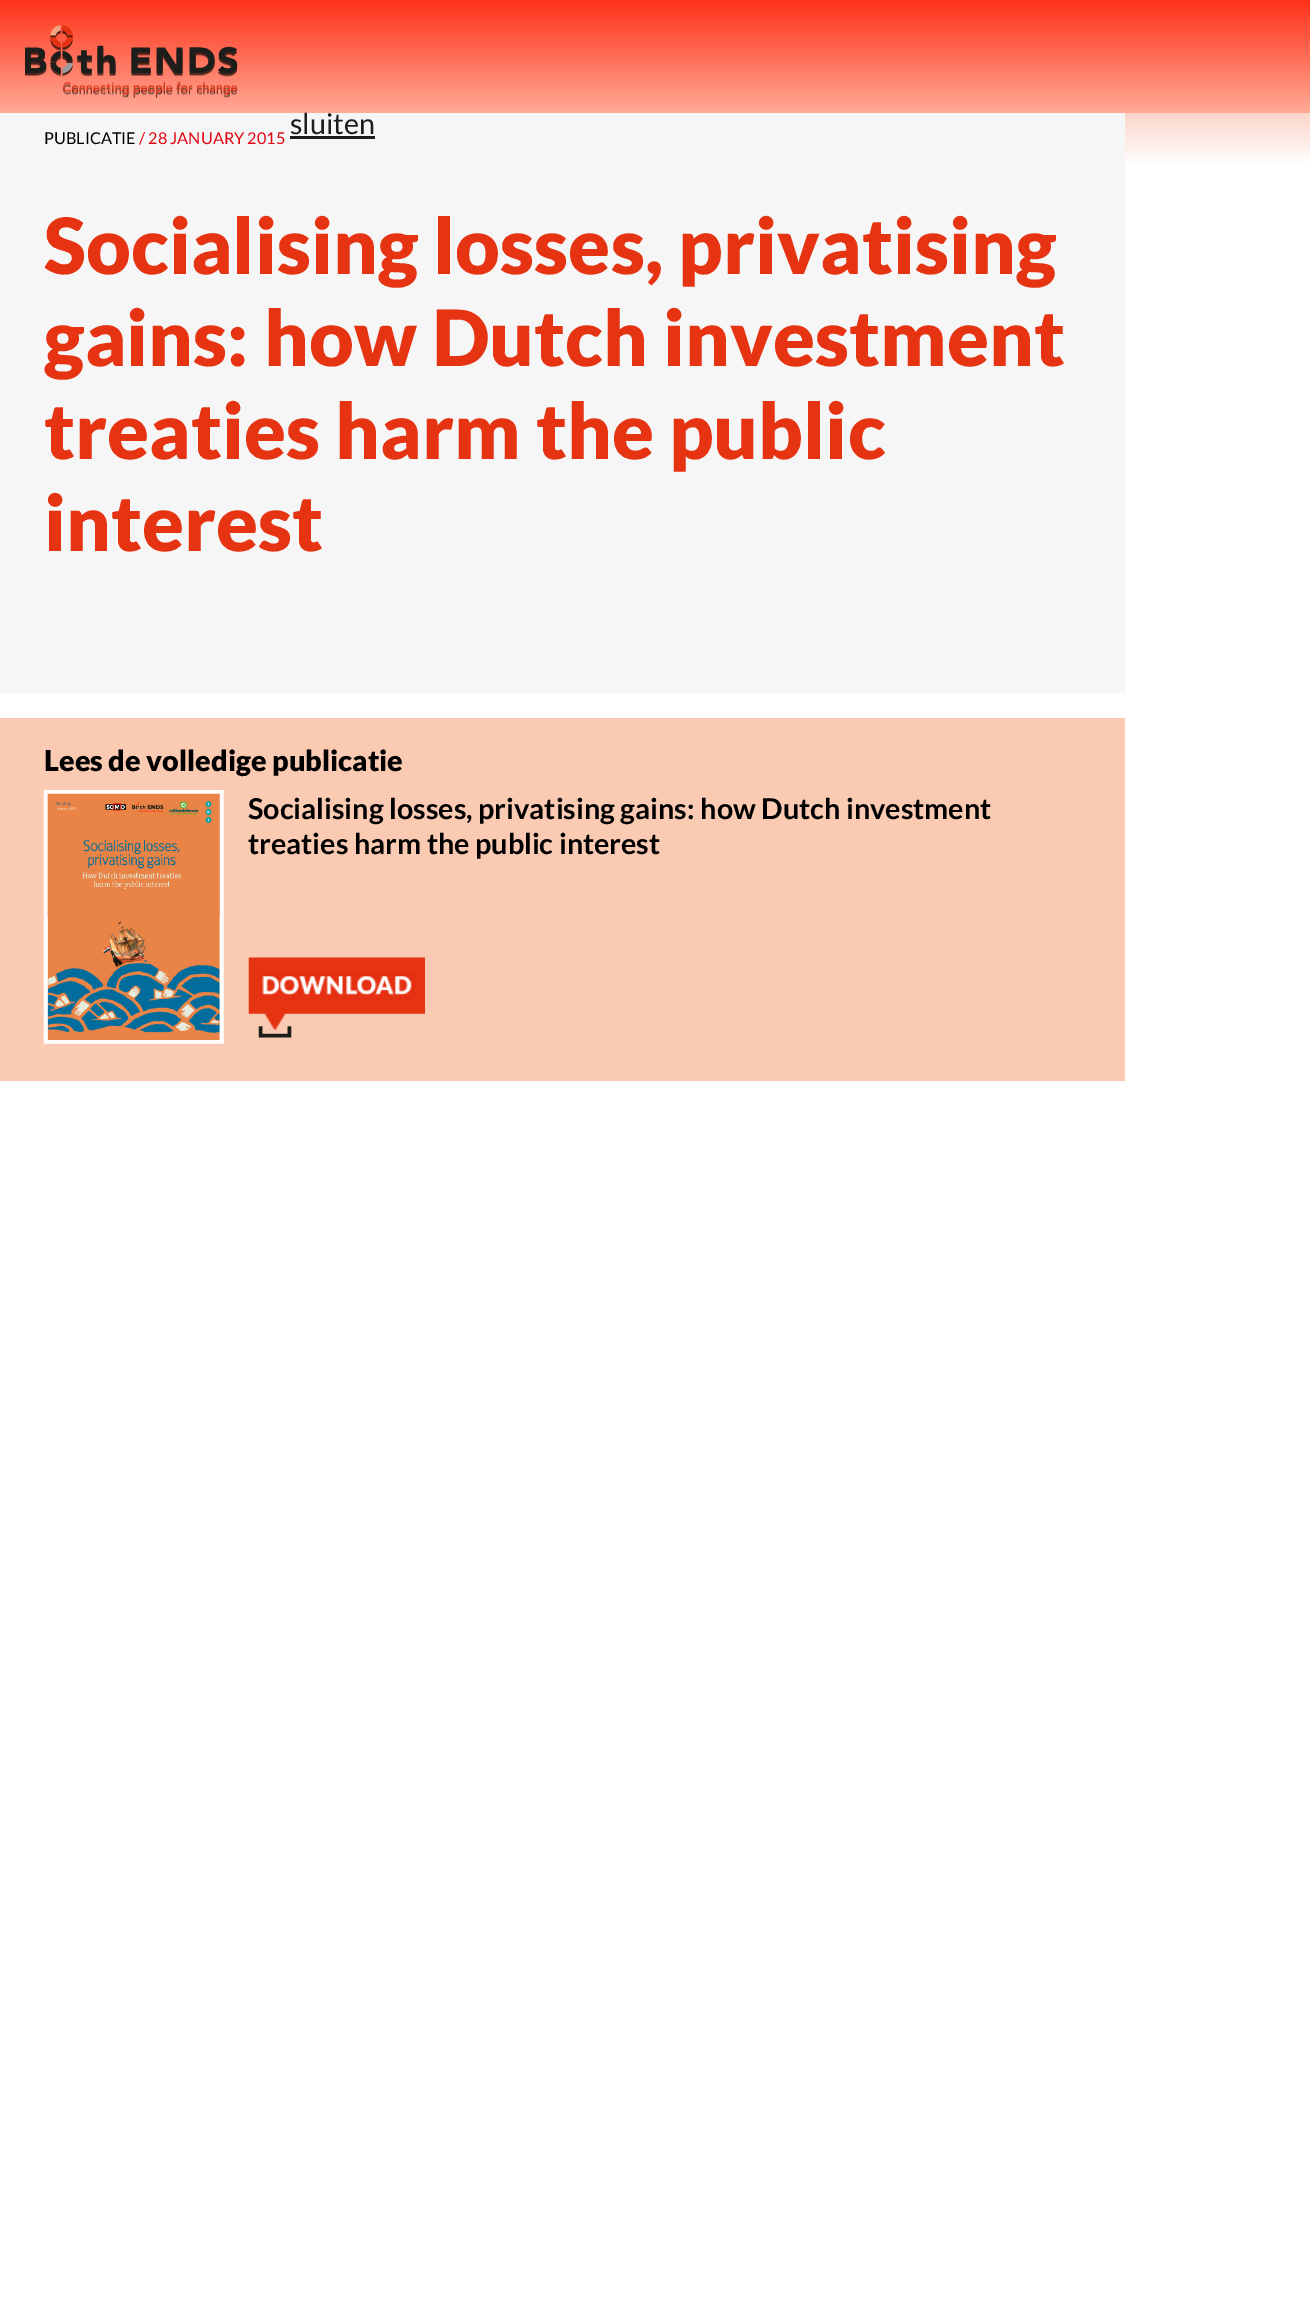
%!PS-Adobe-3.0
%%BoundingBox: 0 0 1310 2323
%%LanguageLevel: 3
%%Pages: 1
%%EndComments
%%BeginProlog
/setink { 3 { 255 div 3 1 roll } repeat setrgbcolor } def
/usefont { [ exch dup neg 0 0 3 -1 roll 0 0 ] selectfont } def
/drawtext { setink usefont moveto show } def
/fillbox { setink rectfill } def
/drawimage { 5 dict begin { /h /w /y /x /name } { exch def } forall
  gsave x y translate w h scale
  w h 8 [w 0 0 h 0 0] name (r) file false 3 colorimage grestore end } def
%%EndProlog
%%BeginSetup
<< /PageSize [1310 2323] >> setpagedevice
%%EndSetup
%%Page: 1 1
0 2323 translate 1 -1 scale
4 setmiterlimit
0 0 1310 2323 255 255 255 fillbox
(assets/img1.rgb) 1125 113 185 49 drawimage
gsave 0 0 moveto 1310 0 lineto 1310 113 lineto 0 113 lineto closepath clip newpath
<< /ShadingType 2 /ColorSpace /DeviceRGB /Coords [655 0 655 113] /Extend [true true] /Function << /FunctionType 2 /Domain [0 1] /C0 [1 0.192 0.098] /C1 [1 0.667 0.584] /N 1 >> >> shfill grestore
(assets/img2.rgb) 25 25 213 73 drawimage
0 113 1125 580 246 246 246 fillbox
(sluiten) 290 134 /Lato-Regular 28.75 29 29 27 drawtext
290 136 85 3 29 29 27 fillbox
(PUBLICATIE) 44 144 /Lato-Regular 16.25 0 0 0 drawtext
(/ 28 JANUARY 2015) 139 144 /Lato-Regular 16.25 227 6 19 drawtext
(Socialising losses, privatising) 44 274 /Lato-Black 77.5 230 51 18 drawtext
(gains: how Dutch investment) 44 366 /Lato-Black 77.5 230 51 18 drawtext
(treaties harm the public) 44 459 /Lato-Black 77.5 230 51 18 drawtext
(interest) 44 551 /Lato-Black 77.5 230 51 18 drawtext
0 718 1125 363 250 202 178 fillbox
(Lees de volledige publicatie) 44 771 /Lato-Black 28.75 0 0 0 drawtext
(assets/img3.rgb) 43 790 181 254 drawimage
(Socialising losses, privatising gains: how Dutch investment) 248 819 /Lato-Bold 28.75 0 0 0 drawtext
(treaties harm the public interest) 248 854 /Lato-Bold 28.75 0 0 0 drawtext
(assets/img4.rgb) 248 957 177 81 drawimage
showpage
%%EOF
